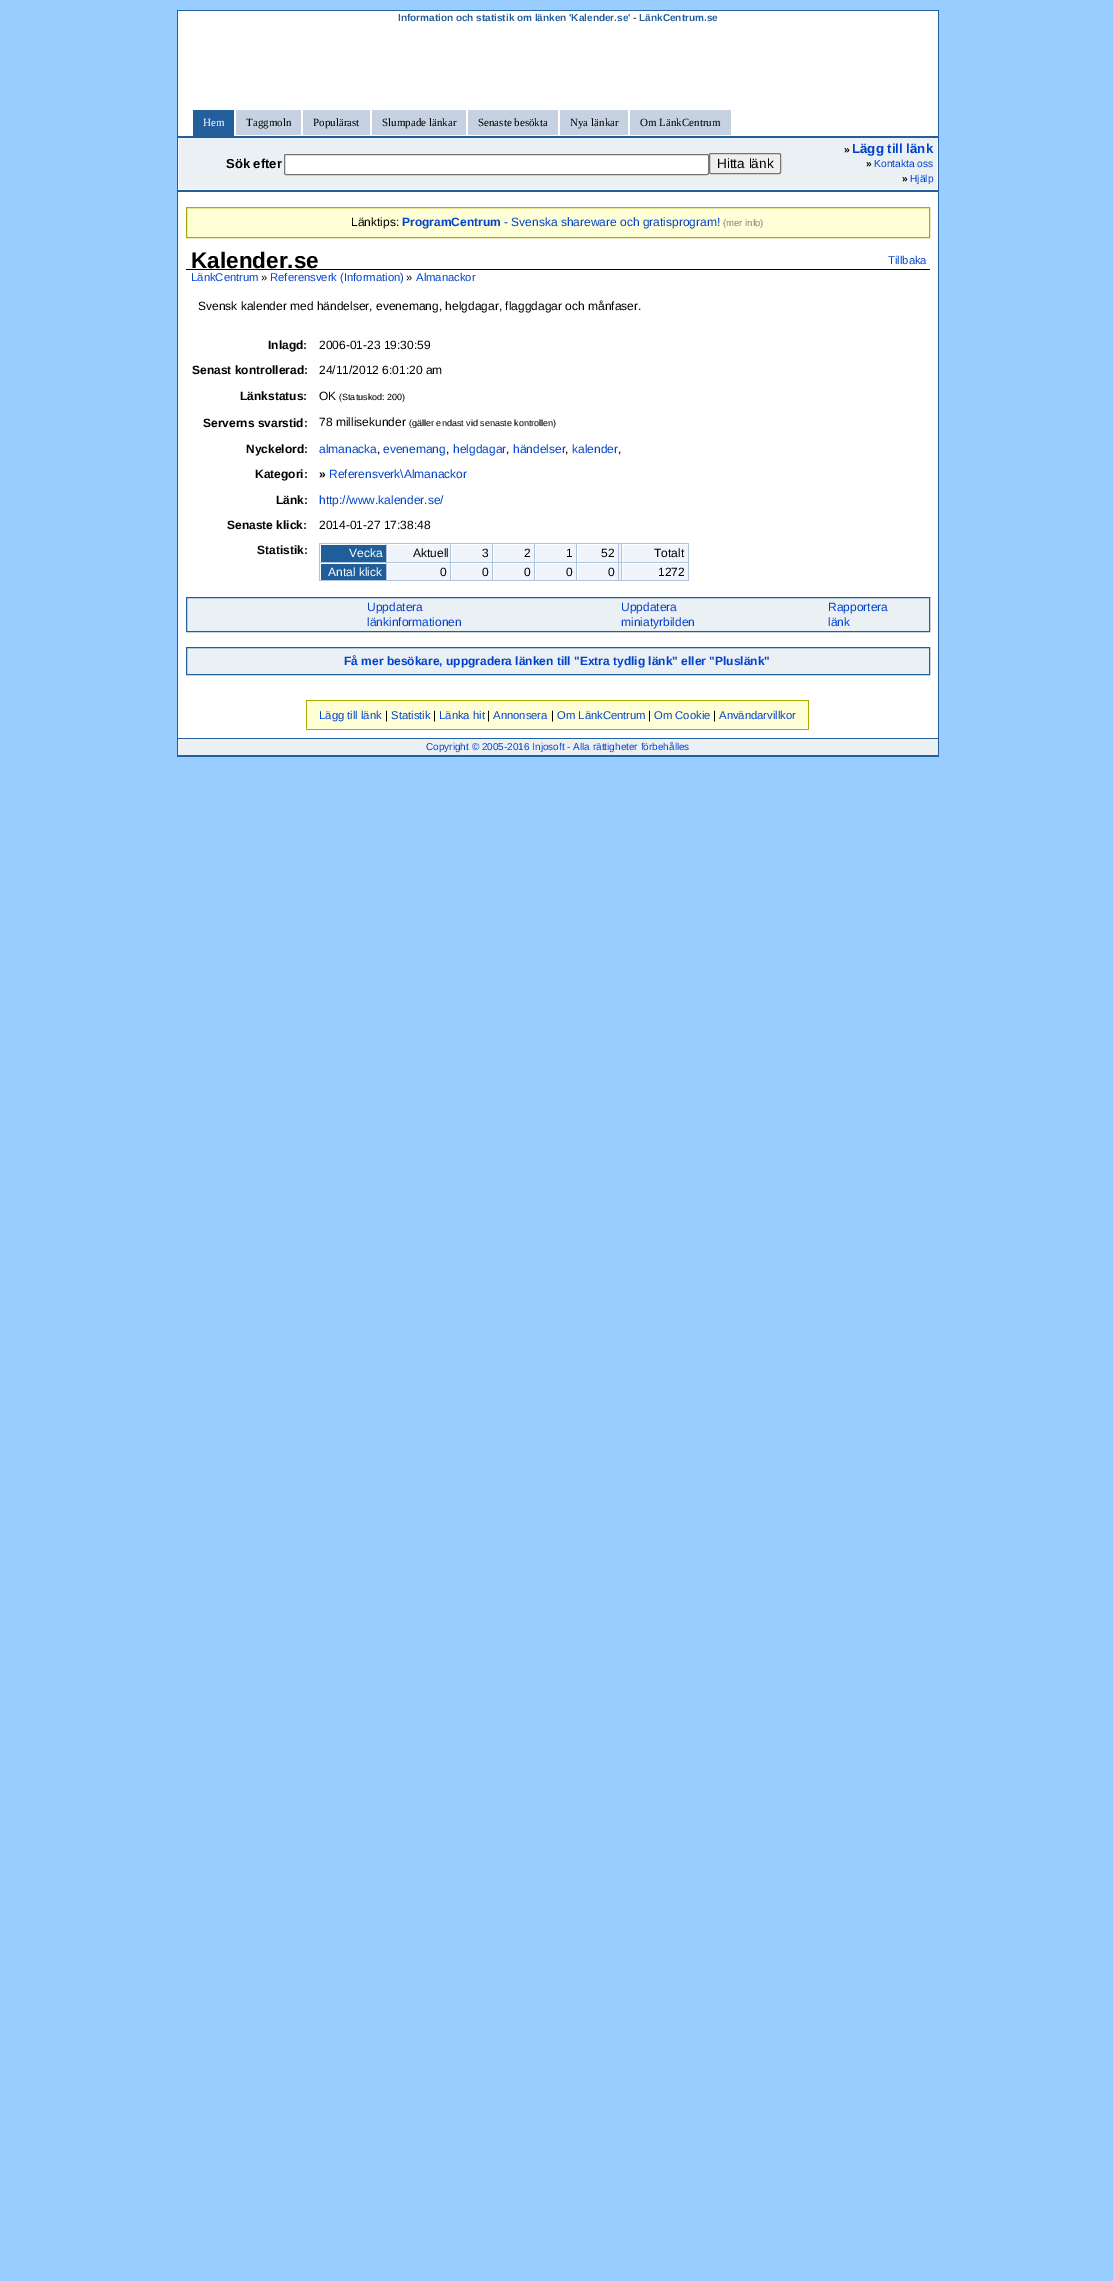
%!PS-Adobe-3.0
%%BoundingBox: 0 0 1113 2281
%%LanguageLevel: 3
%%Pages: 1
%%EndComments
%%BeginProlog
/setink { 3 { 255 div 3 1 roll } repeat setrgbcolor } def
/usefont { [ exch dup neg 0 0 3 -1 roll 0 0 ] selectfont } def
/drawtext { setink usefont moveto show } def
/fillbox { setink rectfill } def
/rrect { 5 dict begin { /r /h /w /y /x } { exch def } forall
  x r add y moveto x w add y 2 copy h add r arct x w add y h add x 1 index r arct
  x y h add x y r arct x y 2 copy exch w add exch r arct closepath end } def
%%EndProlog
%%BeginSetup
<< /PageSize [1113 2281] >> setpagedevice
%%EndSetup
%%Page: 1 1
0 2281 translate 1 -1 scale
4 setmiterlimit
0 0 1113 2281 153 204 255 fillbox
178 11 760 727 255 255 255 fillbox
177 10 762 1 35 94 157 fillbox
938 10 1 747 35 94 157 fillbox
177 10 1 747 35 94 157 fillbox
(Information och statistik om länken 'Kalender.se' - LänkCentrum.se) 398 21 /LiberationSans-Bold 10 35 94 157 drawtext
193 110 41 26 35 94 157 fillbox
(Hem) 203 126 /LiberationSerif-Regular 11 255 255 255 drawtext
236 110 65 25 198 210 225 fillbox
(Taggmoln) 246 126 /LiberationSerif-Regular 11 0 0 0 drawtext
303 110 67 25 198 210 225 fillbox
(Populärast) 313 126 /LiberationSerif-Regular 11 0 0 0 drawtext
372 110 94 25 198 210 225 fillbox
(Slumpade länkar) 382 126 /LiberationSerif-Regular 11 0 0 0 drawtext
468 110 90 25 198 210 225 fillbox
(Senaste besökta) 478 126 /LiberationSerif-Regular 11 0 0 0 drawtext
560 110 68 25 198 210 225 fillbox
(Nya länkar) 570 126 /LiberationSerif-Regular 11 0 0 0 drawtext
630 110 101 25 198 210 225 fillbox
(Om LänkCentrum) 640 126 /LiberationSerif-Regular 11 0 0 0 drawtext
178 136 760 2 35 94 157 fillbox
178 190 760 2 35 94 157 fillbox
179 138 758 51 235 240 245 fillbox
(Sök efter) 226 168 /LiberationSans-Bold 13 0 0 0 drawtext
255 255 255 setink
284.5 154.5 424 20 1.5 rrect gsave fill grestore
118 118 118 setink
stroke
239 239 239 setink
709.5 153.5 71 20 1.5 rrect gsave fill grestore
118 118 118 setink
stroke
(Hitta länk) 717 168 /LiberationSans-Regular 13.5 0 0 0 drawtext
(») 844 153 /LiberationSans-Bold 10.25 0 0 0 drawtext
(Lägg till länk) 852 153 /LiberationSans-Bold 13.25 0 66 204 drawtext
(») 866 167 /LiberationSans-Bold 10.25 0 0 0 drawtext
(Kontakta oss) 874 167 /LiberationSans-Regular 10.25 0 66 204 drawtext
(») 902 182 /LiberationSans-Bold 10.25 0 0 0 drawtext
(Hjälp) 910 182 /LiberationSans-Regular 10.25 0 66 204 drawtext
255 255 215 setink
186.5 207.5 moveto 929.5 207.5 lineto 929.5 237.5 lineto 186.5 237.5 lineto closepath gsave fill grestore
170 170 0 setink
stroke
(Länktips:) 351 226 /LiberationSans-Regular 12 0 0 0 drawtext
(ProgramCentrum) 402 226 /LiberationSans-Bold 12 0 66 204 drawtext
(- Svenska shareware och gratisprogram!) 504 226 /LiberationSans-Regular 12 0 66 204 drawtext
(\(mer info\)) 723 226 /LiberationSans-Regular 9.5 128 128 128 drawtext
186 269 744 1 0 0 0 fillbox
(Kalender.se) 191 268 /LiberationSans-Bold 22.5 0 0 0 drawtext
(Tillbaka) 888 264 /LiberationSans-Regular 11.25 0 66 204 drawtext
(LänkCentrum) 191 281 /LiberationSans-Regular 11.25 0 66 204 drawtext
(») 261 281 /LiberationSans-Regular 11.25 0 0 0 drawtext
(Referensverk \(Information\)) 270 281 /LiberationSans-Regular 11.25 0 66 204 drawtext
(») 406 281 /LiberationSans-Regular 11.25 0 0 0 drawtext
(Almanackor) 416 281 /LiberationSans-Regular 11.25 0 66 204 drawtext
(Svensk kalender med händelser, evenemang, helgdagar, flaggdagar och månfaser.) 198 310 /LiberationSans-Regular 12 0 0 0 drawtext
(Inlagd:) 268 349 /LiberationSans-Bold 12 0 0 0 drawtext
(2006-01-23 19:30:59) 319 349 /LiberationSans-Regular 12 0 0 0 drawtext
(Senast kontrollerad:) 192 374 /LiberationSans-Bold 12 0 0 0 drawtext
(24/11/2012 6:01:20 am) 319 374 /LiberationSans-Regular 12 0 0 0 drawtext
(Länkstatus:) 240 400 /LiberationSans-Bold 12 0 0 0 drawtext
(OK) 319 400 /LiberationSans-Regular 12 0 0 0 drawtext
(\(Statuskod: 200\)) 339 400 /LiberationSans-Regular 9 0 0 0 drawtext
(Serverns svarstid:) 203 427 /LiberationSans-Bold 12 0 0 0 drawtext
(78 millisekunder) 319 426 /LiberationSans-Regular 12 0 0 0 drawtext
(\(gäller endast vid senaste kontrollen\)) 409 426 /LiberationSans-Regular 9 0 0 0 drawtext
(Nyckelord:) 246 453 /LiberationSans-Bold 12 0 0 0 drawtext
(almanacka) 319 453 /LiberationSans-Regular 12 0 66 204 drawtext
(,) 377 453 /LiberationSans-Regular 12 0 0 0 drawtext
(evenemang) 383 453 /LiberationSans-Regular 12 0 66 204 drawtext
(,) 446 453 /LiberationSans-Regular 12 0 0 0 drawtext
(helgdagar) 453 453 /LiberationSans-Regular 12 0 66 204 drawtext
(,) 506 453 /LiberationSans-Regular 12 0 0 0 drawtext
(händelser) 513 453 /LiberationSans-Regular 12 0 66 204 drawtext
(,) 565 453 /LiberationSans-Regular 12 0 0 0 drawtext
(kalender) 572 453 /LiberationSans-Regular 12 0 66 204 drawtext
(,) 618 453 /LiberationSans-Regular 12 0 0 0 drawtext
(Kategori:) 255 478 /LiberationSans-Bold 12 0 0 0 drawtext
(») 319 478 /LiberationSans-Bold 12 0 0 0 drawtext
(Referensverk\\Almanackor) 329 478 /LiberationSans-Regular 12 0 66 204 drawtext
(Länk:) 276 504 /LiberationSans-Bold 12 0 0 0 drawtext
(http://www.kalender.se/) 319 504 /LiberationSans-Regular 12 0 66 204 drawtext
(Senaste klick:) 227 529 /LiberationSans-Bold 12 0 0 0 drawtext
(2014-01-27 17:38:48) 319 529 /LiberationSans-Regular 12 0 0 0 drawtext
(Statistik:) 257 554 /LiberationSans-Bold 12 0 0 0 drawtext
319 543 370 38 176 196 222 fillbox
321 545 65 17 32 94 154 fillbox
320 544 66 1 255 255 255 fillbox
320 544 1 18 255 255 255 fillbox
(Vecka) 349 557 /LiberationSans-Regular 12 255 255 255 drawtext
388 545 62 17 240 245 251 fillbox
387 544 63 1 255 255 255 fillbox
387 544 1 18 255 255 255 fillbox
(Aktuell) 413 557 /LiberationSans-Regular 12 0 0 0 drawtext
452 545 40 17 240 245 251 fillbox
451 544 41 1 255 255 255 fillbox
451 544 1 18 255 255 255 fillbox
(3) 482 557 /LiberationSans-Regular 12 0 0 0 drawtext
494 545 40 17 240 245 251 fillbox
493 544 41 1 255 255 255 fillbox
493 544 1 18 255 255 255 fillbox
(2) 524 557 /LiberationSans-Regular 12 0 0 0 drawtext
536 545 40 17 240 245 251 fillbox
535 544 41 1 255 255 255 fillbox
535 544 1 18 255 255 255 fillbox
(1) 566 557 /LiberationSans-Regular 12 0 0 0 drawtext
578 545 40 17 240 245 251 fillbox
577 544 41 1 255 255 255 fillbox
577 544 1 18 255 255 255 fillbox
(52) 601 557 /LiberationSans-Regular 12 0 0 0 drawtext
619 544 2 18 240 245 251 fillbox
623 545 65 17 240 245 251 fillbox
622 544 66 1 255 255 255 fillbox
622 544 1 18 255 255 255 fillbox
(Totalt) 654 557 /LiberationSans-Regular 12 0 0 0 drawtext
321 564 65 16 32 94 154 fillbox
320 563 66 1 255 255 255 fillbox
320 563 1 17 255 255 255 fillbox
(Antal klick) 328 576 /LiberationSans-Regular 12 255 255 255 drawtext
388 564 62 16 240 245 251 fillbox
387 563 63 1 255 255 255 fillbox
387 563 1 17 255 255 255 fillbox
(0) 440 576 /LiberationSans-Regular 12 0 0 0 drawtext
452 564 40 16 240 245 251 fillbox
451 563 41 1 255 255 255 fillbox
451 563 1 17 255 255 255 fillbox
(0) 482 576 /LiberationSans-Regular 12 0 0 0 drawtext
494 564 40 16 240 245 251 fillbox
493 563 41 1 255 255 255 fillbox
493 563 1 17 255 255 255 fillbox
(0) 524 576 /LiberationSans-Regular 12 0 0 0 drawtext
536 564 40 16 240 245 251 fillbox
535 563 41 1 255 255 255 fillbox
535 563 1 17 255 255 255 fillbox
(0) 566 576 /LiberationSans-Regular 12 0 0 0 drawtext
578 564 40 16 240 245 251 fillbox
577 563 41 1 255 255 255 fillbox
577 563 1 17 255 255 255 fillbox
(0) 608 576 /LiberationSans-Regular 12 0 0 0 drawtext
619 563 2 17 240 245 251 fillbox
623 564 65 16 240 245 251 fillbox
622 563 66 1 255 255 255 fillbox
622 563 1 17 255 255 255 fillbox
(1272) 658 576 /LiberationSans-Regular 12 0 0 0 drawtext
235 240 245 setink
186.5 597.5 moveto 929.5 597.5 lineto 929.5 631.5 lineto 186.5 631.5 lineto closepath gsave fill grestore
35 94 157 setink
stroke
(Uppdatera) 367 611 /LiberationSans-Regular 12 0 66 204 drawtext
(länkinformationen) 367 626 /LiberationSans-Regular 12 0 66 204 drawtext
(Uppdatera) 621 611 /LiberationSans-Regular 12 0 66 204 drawtext
(miniatyrbilden) 621 626 /LiberationSans-Regular 12 0 66 204 drawtext
(Rapportera) 828 611 /LiberationSans-Regular 12 0 66 204 drawtext
(länk) 828 626 /LiberationSans-Regular 12 0 66 204 drawtext
235 240 245 setink
186.5 647.5 moveto 929.5 647.5 lineto 929.5 674.5 lineto 186.5 674.5 lineto closepath gsave fill grestore
35 94 157 setink
stroke
(Få mer besökare, uppgradera länken till "Extra tydlig länk" eller "Pluslänk") 344 665 /LiberationSans-Bold 12 0 66 204 drawtext
307 701 501 28 255 255 215 fillbox
(Lägg till länk) 319 719 /LiberationSans-Regular 11.25 0 66 204 drawtext
306 729 413 1 170 170 0 fillbox
306 700 503 1 170 170 0 fillbox
306 700 1 30 170 170 0 fillbox
(|) 385 719 /LiberationSans-Regular 11.25 0 0 0 drawtext
(Statistik) 391 719 /LiberationSans-Regular 11.25 0 66 204 drawtext
(|) 433 719 /LiberationSans-Regular 11.25 0 0 0 drawtext
(Länka hit) 439 719 /LiberationSans-Regular 11.25 0 66 204 drawtext
(|) 487 719 /LiberationSans-Regular 11.25 0 0 0 drawtext
(Annonsera) 493 719 /LiberationSans-Regular 11.25 0 66 204 drawtext
(|) 551 719 /LiberationSans-Regular 11.25 0 0 0 drawtext
(Om LänkCentrum) 557 719 /LiberationSans-Regular 11.25 0 66 204 drawtext
(|) 648 719 /LiberationSans-Regular 11.25 0 0 0 drawtext
(Om Cookie) 654 719 /LiberationSans-Regular 11.25 0 66 204 drawtext
(|) 713 719 /LiberationSans-Regular 11.25 0 0 0 drawtext
(Användarvillkor) 719 719 /LiberationSans-Regular 11.25 0 66 204 drawtext
808 700 1 30 170 170 0 fillbox
719 729 90 1 170 170 0 fillbox
178 739 760 16 235 240 245 fillbox
178 738 760 1 35 94 157 fillbox
178 755 760 2 35 94 157 fillbox
(Copyright © 2005-2016 Injosoft - Alla rättigheter förbehålles) 426 750 /LiberationSans-Regular 10 0 66 204 drawtext
showpage
%%EOF
